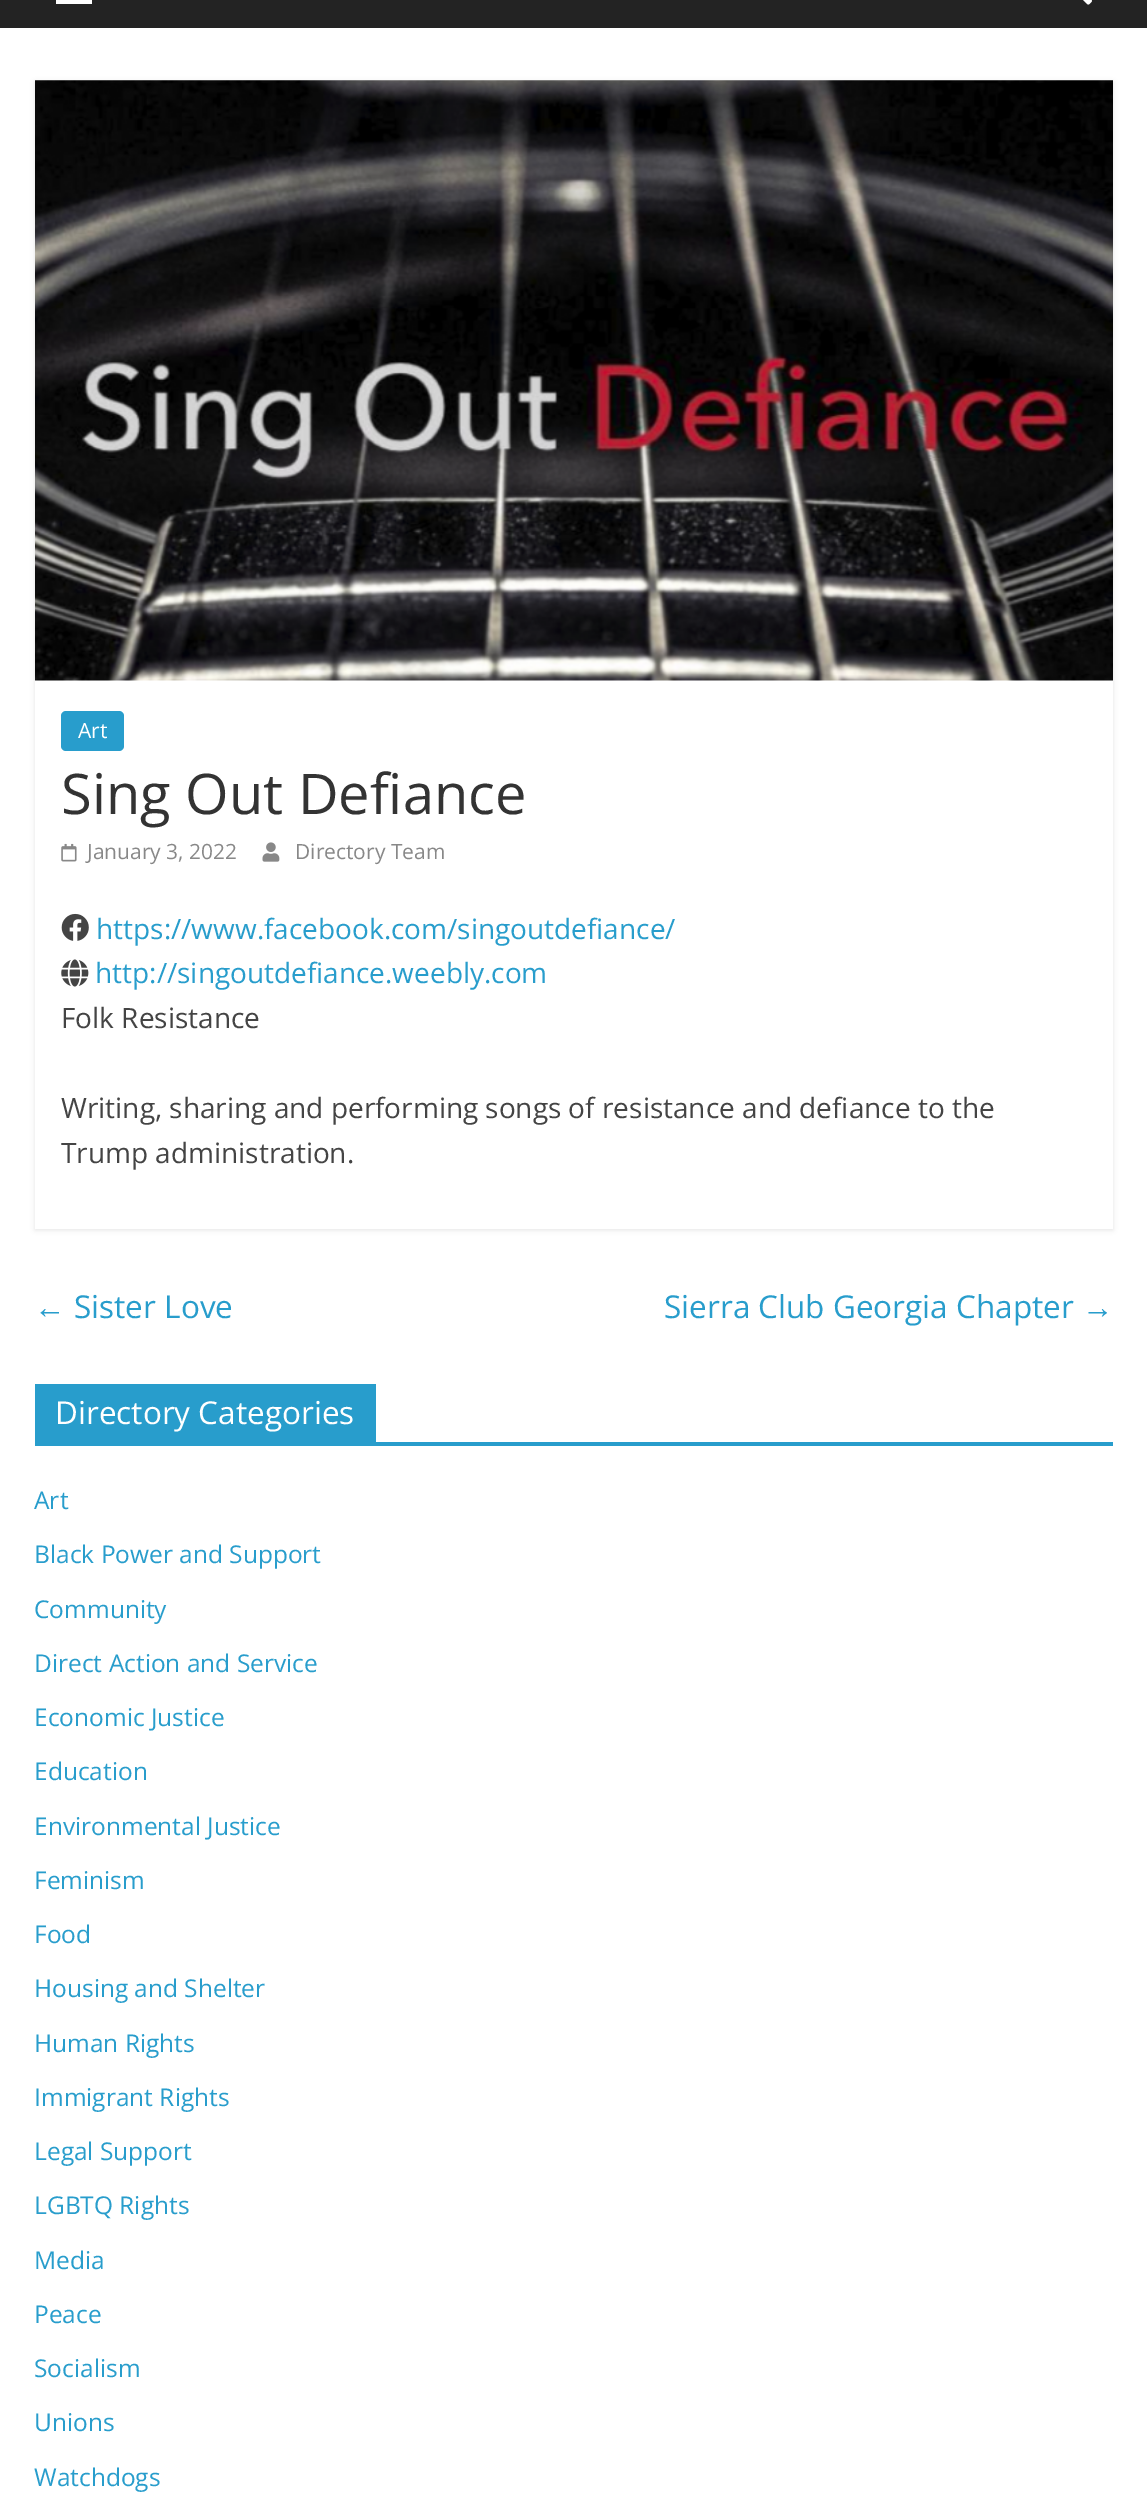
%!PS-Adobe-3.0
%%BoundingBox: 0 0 1147 2494
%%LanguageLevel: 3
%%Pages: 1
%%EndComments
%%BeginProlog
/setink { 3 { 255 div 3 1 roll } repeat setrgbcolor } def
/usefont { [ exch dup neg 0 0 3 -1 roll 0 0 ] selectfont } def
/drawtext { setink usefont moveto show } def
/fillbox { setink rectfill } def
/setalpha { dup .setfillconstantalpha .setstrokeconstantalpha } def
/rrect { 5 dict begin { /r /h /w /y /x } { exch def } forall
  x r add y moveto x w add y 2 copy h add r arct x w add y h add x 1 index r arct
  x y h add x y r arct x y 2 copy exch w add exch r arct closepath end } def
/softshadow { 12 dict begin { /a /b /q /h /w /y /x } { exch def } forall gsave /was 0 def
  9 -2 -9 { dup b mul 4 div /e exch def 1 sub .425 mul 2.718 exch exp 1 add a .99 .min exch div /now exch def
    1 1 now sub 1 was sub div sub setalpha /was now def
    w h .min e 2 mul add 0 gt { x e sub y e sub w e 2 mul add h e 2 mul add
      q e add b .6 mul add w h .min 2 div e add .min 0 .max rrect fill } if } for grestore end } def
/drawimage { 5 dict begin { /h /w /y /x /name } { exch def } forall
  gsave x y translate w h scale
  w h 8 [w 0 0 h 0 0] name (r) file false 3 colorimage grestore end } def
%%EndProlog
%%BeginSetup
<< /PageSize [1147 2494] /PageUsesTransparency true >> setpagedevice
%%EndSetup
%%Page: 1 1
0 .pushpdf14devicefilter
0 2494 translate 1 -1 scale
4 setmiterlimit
0 0 1147 2494 255 255 255 fillbox
0 0 1147 28 35 35 35 fillbox
56 0 36 4 255 255 255 fillbox
(assets/img1.rgb) 1083 0 9 5 drawimage
gsave
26 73 moveto 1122 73 lineto 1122 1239 lineto 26 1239 lineto closepath 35 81 moveto 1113 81 lineto 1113 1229 lineto 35 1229 lineto closepath eoclip newpath
0 0 0 setink
35 82 1078 1148 0 2.5 0.1 softshadow
grestore
(assets/img2.rgb) 35 80 1078 601 drawimage
40 157 204 setink
61 711 63 40 5 rrect fill
(Art) 78 738 /OpenSans-Regular 21 255 255 255 drawtext
(Sing Out Defiance) 61 814 /OpenSans-Regular 56 51 51 51 drawtext
(assets/img3.rgb) 61 843 16 19 drawimage
(January 3, 2022) 87 859 /OpenSans-Regular 21 136 136 136 drawtext
(assets/img4.rgb) 262 842 18 20 drawimage
(Directory Team) 295 859 /OpenSans-Regular 21 136 136 136 drawtext
(assets/img5.rgb) 61 913 28 28 drawimage
(https://www.facebook.com/singoutdefiance/) 96 939 /OpenSans-Regular 28 40 157 204 drawtext
(assets/img6.rgb) 61 959 28 28 drawimage
(http://singoutdefiance.weebly.com) 95 983 /OpenSans-Regular 28 40 157 204 drawtext
(Folk Resistance) 61 1028 /OpenSans-Regular 28 68 68 68 drawtext
(Writing, sharing and performing songs of resistance and defiance to the) 61 1118 /OpenSans-Regular 28 68 68 68 drawtext
(Trump administration.) 61 1163 /OpenSans-Regular 28 68 68 68 drawtext
(←) 34 1318 /LiberationSerif-Regular 31.5 40 157 204 drawtext
(Sister Love) 74 1318 /OpenSans-Regular 31.5 40 157 204 drawtext
(Sierra Club Georgia Chapter) 664 1318 /OpenSans-Regular 31.5 40 157 204 drawtext
(→) 1082 1318 /LiberationSerif-Regular 31.5 40 157 204 drawtext
35 1442 1078 4 40 157 204 fillbox
35 1384 341 58 40 157 204 fillbox
(Directory Categories) 55 1424 /OpenSans-Regular 31.5 255 255 255 drawtext
(Art) 34 1509 /OpenSans-Regular 24.5 40 157 204 drawtext
(Black Power and Support) 34 1563 /OpenSans-Regular 24.5 40 157 204 drawtext
(Community) 34 1618 /OpenSans-Regular 24.5 40 157 204 drawtext
(Direct Action and Service) 34 1672 /OpenSans-Regular 24.5 40 157 204 drawtext
(Economic Justice) 34 1726 /OpenSans-Regular 24.5 40 157 204 drawtext
(Education) 34 1780 /OpenSans-Regular 24.5 40 157 204 drawtext
(Environmental Justice) 34 1835 /OpenSans-Regular 24.5 40 157 204 drawtext
(Feminism) 34 1889 /OpenSans-Regular 24.5 40 157 204 drawtext
(Food) 34 1943 /OpenSans-Regular 24.5 40 157 204 drawtext
(Housing and Shelter) 34 1997 /OpenSans-Regular 24.5 40 157 204 drawtext
(Human Rights) 34 2052 /OpenSans-Regular 24.5 40 157 204 drawtext
(Immigrant Rights) 34 2106 /OpenSans-Regular 24.5 40 157 204 drawtext
(Legal Support) 34 2160 /OpenSans-Regular 24.5 40 157 204 drawtext
(LGBTQ Rights) 34 2214 /OpenSans-Regular 24.5 40 157 204 drawtext
(Media) 34 2269 /OpenSans-Regular 24.5 40 157 204 drawtext
(Peace) 34 2323 /OpenSans-Regular 24.5 40 157 204 drawtext
(Socialism) 34 2377 /OpenSans-Regular 24.5 40 157 204 drawtext
(Unions) 34 2431 /OpenSans-Regular 24.5 40 157 204 drawtext
(Watchdogs) 34 2486 /OpenSans-Regular 24.5 40 157 204 drawtext
.poppdf14devicefilter showpage
%%EOF
